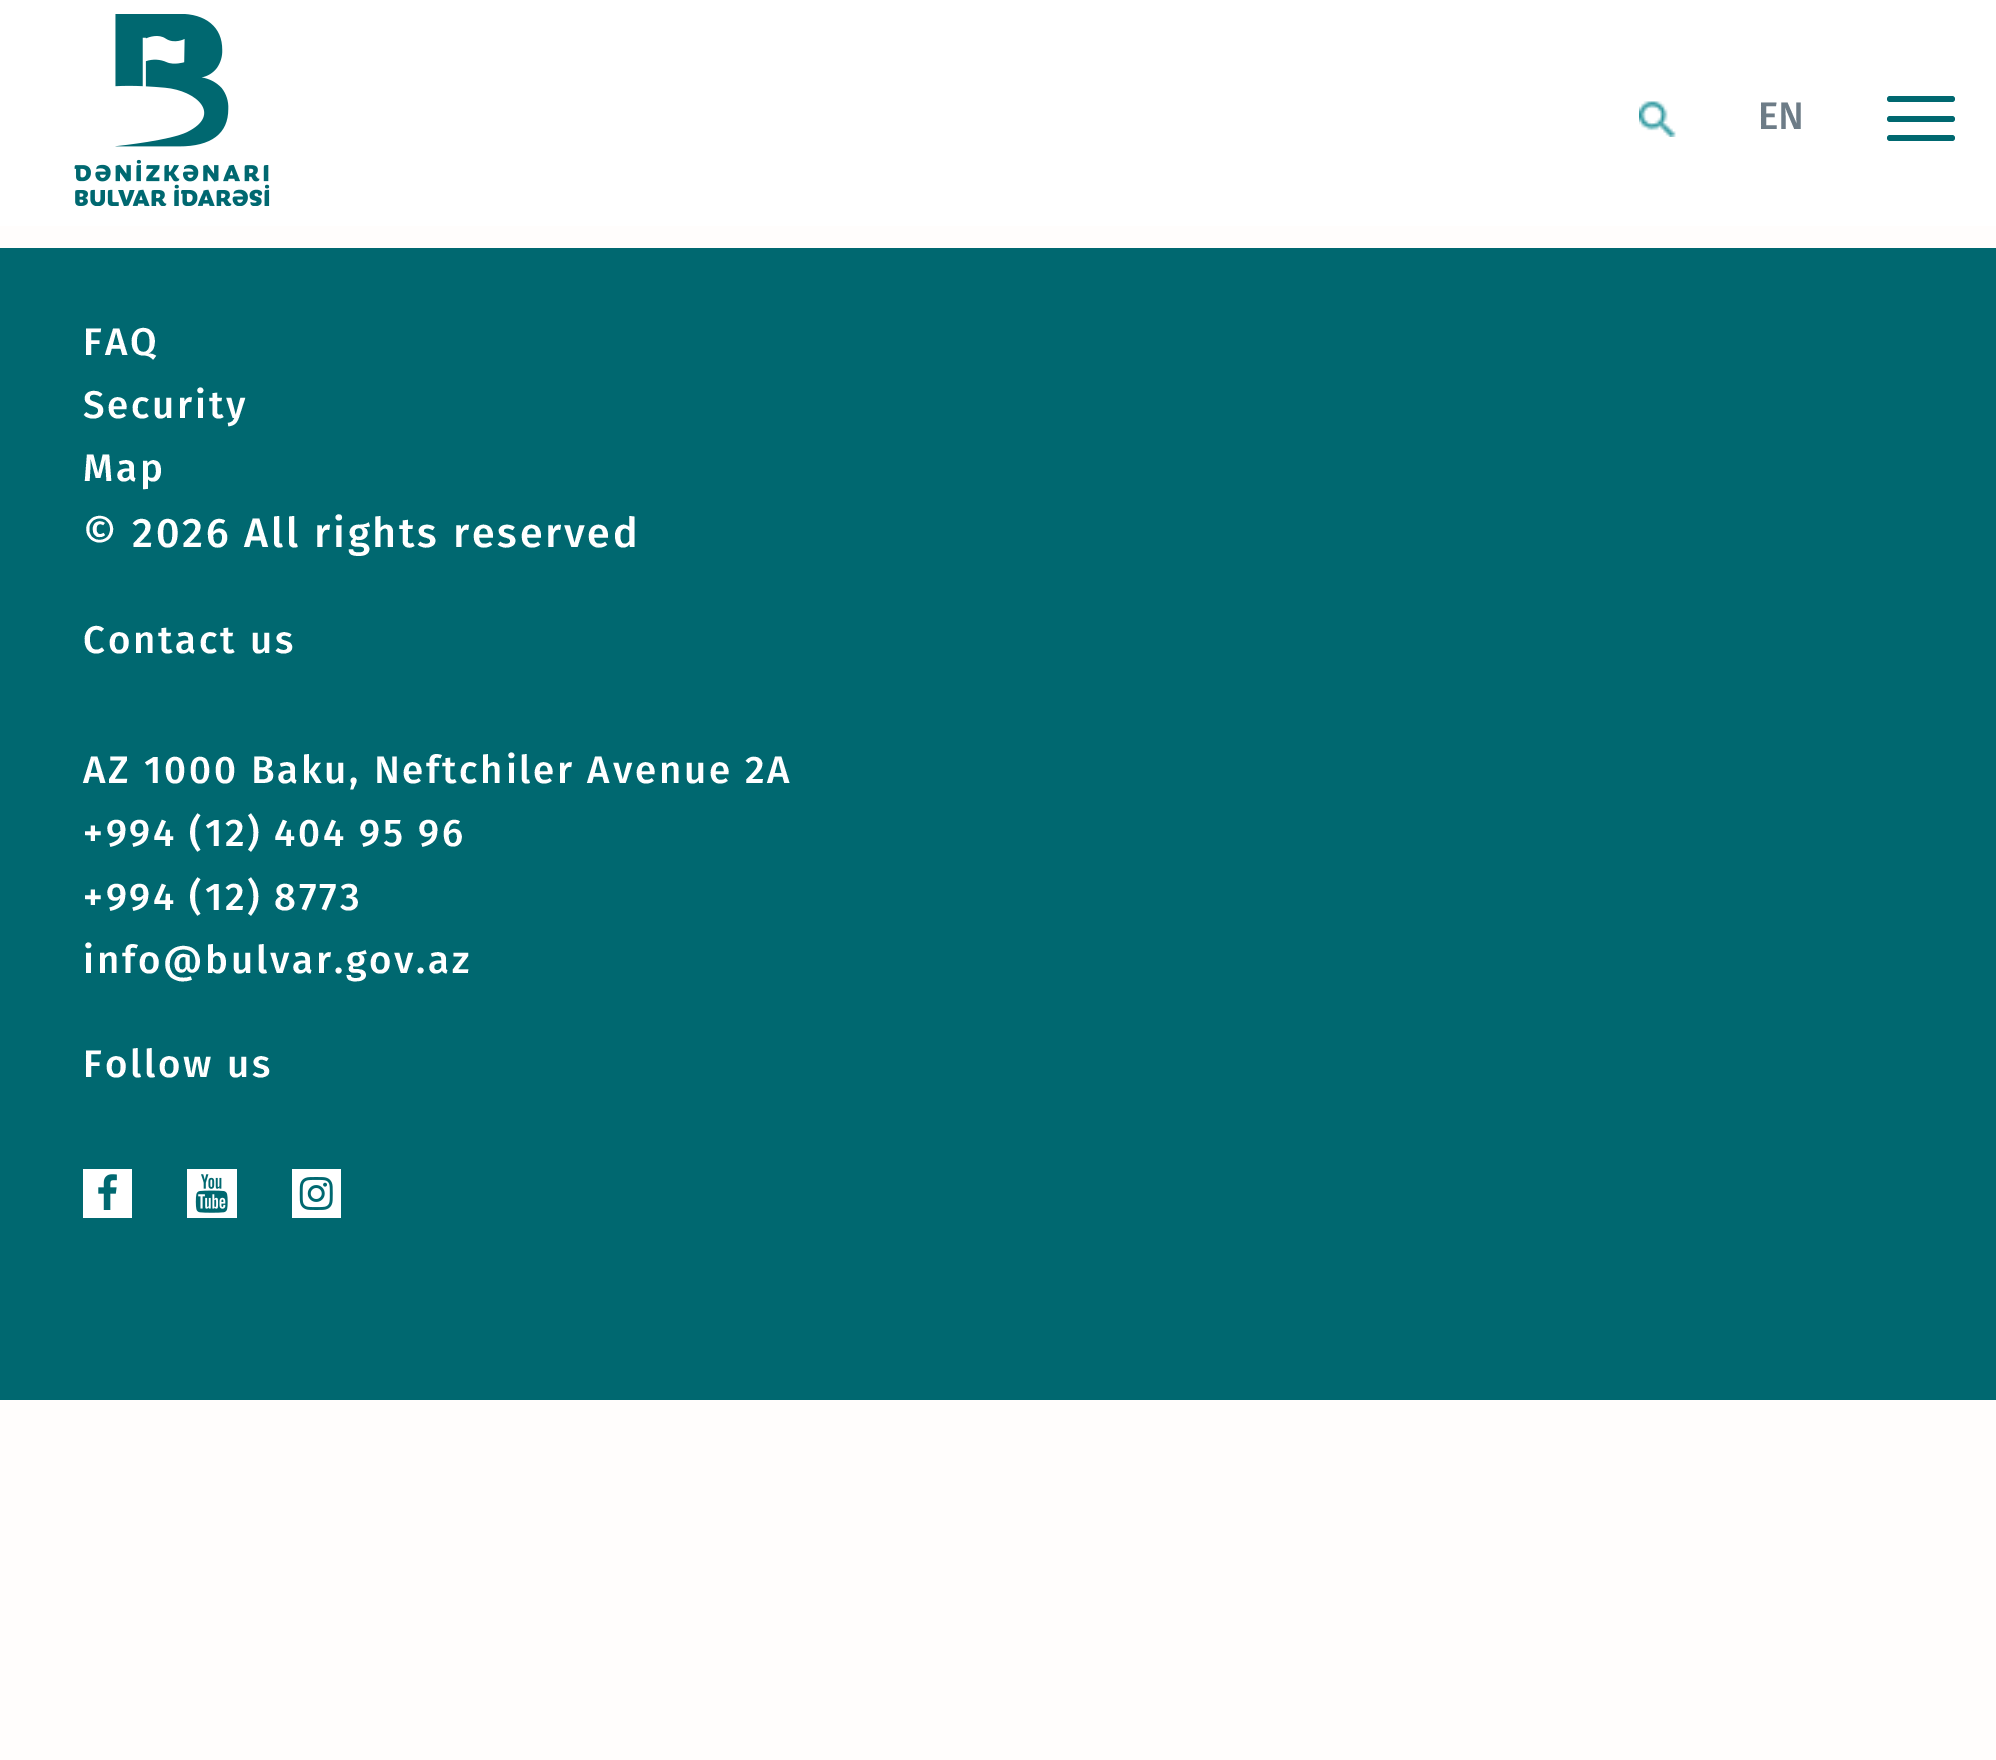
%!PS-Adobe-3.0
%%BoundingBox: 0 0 1996 1760
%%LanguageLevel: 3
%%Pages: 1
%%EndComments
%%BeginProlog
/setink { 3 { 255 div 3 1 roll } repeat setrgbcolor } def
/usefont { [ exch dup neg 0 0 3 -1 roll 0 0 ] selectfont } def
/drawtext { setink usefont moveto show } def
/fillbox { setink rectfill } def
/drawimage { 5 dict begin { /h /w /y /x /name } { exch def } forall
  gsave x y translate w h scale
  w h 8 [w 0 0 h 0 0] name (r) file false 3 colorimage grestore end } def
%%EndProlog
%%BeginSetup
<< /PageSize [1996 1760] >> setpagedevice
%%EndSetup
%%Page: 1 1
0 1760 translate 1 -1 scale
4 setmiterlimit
0 0 1996 1760 255 253 252 fillbox
0 0 1996 226 255 255 255 fillbox
(assets/img1.rgb) 74 14 196 192 drawimage
(assets/img2.rgb) 1639 101 37 36 drawimage
(EN) 1758 129 /FiraSans-Medium 38.5 109 124 135 drawtext
0 104 112 setink
1890 96 moveto 1922 96 lineto 1922 102 lineto 1890 102 lineto 1888.5 102 1887 100.5 1887 99 curveto 1887 97.5 1888.5 96 1890 96 curveto closepath fill
1922 96 moveto 1952 96 lineto 1953.5 96 1955 97.5 1955 99 curveto 1955 100.5 1953.5 102 1952 102 curveto 1922 102 lineto closepath fill
1890 116 moveto 1922 116 lineto 1922 122 lineto 1890 122 lineto 1888.5 122 1887 120.5 1887 119 curveto 1887 117.5 1888.5 116 1890 116 curveto closepath fill
1922 116 moveto 1952 116 lineto 1953.5 116 1955 117.5 1955 119 curveto 1955 120.5 1953.5 122 1952 122 curveto 1922 122 lineto closepath fill
1890 135 moveto 1922 135 lineto 1922 141 lineto 1890 141 lineto 1888.5 141 1887 139.5 1887 138 curveto 1887 136.5 1888.5 135 1890 135 curveto closepath fill
1922 135 moveto 1952 135 lineto 1953.5 135 1955 136.5 1955 138 curveto 1955 139.5 1953.5 141 1952 141 curveto 1922 141 lineto closepath fill
0 248 1996 1152 0 104 112 fillbox
255 255 255 setink
83 355 moveto 2.75 0 (FAQ) ashow
83 418 moveto 2.75 0 (Security) ashow
83 481 moveto 2.75 0 (Map) ashow
/FiraSans-Medium 41.25 usefont
83 547 moveto 2.75 0 (© 2026 All rights reserved) ashow
/FiraSans-Medium 38.5 usefont
83 653 moveto 2.75 0 (Contact us) ashow
83 783 moveto 2.75 0 (AZ 1000 Baku, Neftchiler Avenue 2A) ashow
83 846 moveto 2.75 0 (+994 \(12\) 404 95 96) ashow
83 910 moveto 2.75 0 (+994 \(12\) 8773) ashow
83 973 moveto 2.75 0 (info@bulvar.gov.az) ashow
83 1077 moveto 2.75 0 (Follow us) ashow
83 1169 49 49 255 255 255 fillbox
(assets/img3.rgb) 98 1174 19 36 drawimage
187 1169 50 49 255 255 255 fillbox
(assets/img4.rgb) 195 1174 33 39 drawimage
292 1169 49 49 255 255 255 fillbox
(assets/img5.rgb) 299 1177 34 33 drawimage
showpage
%%EOF
